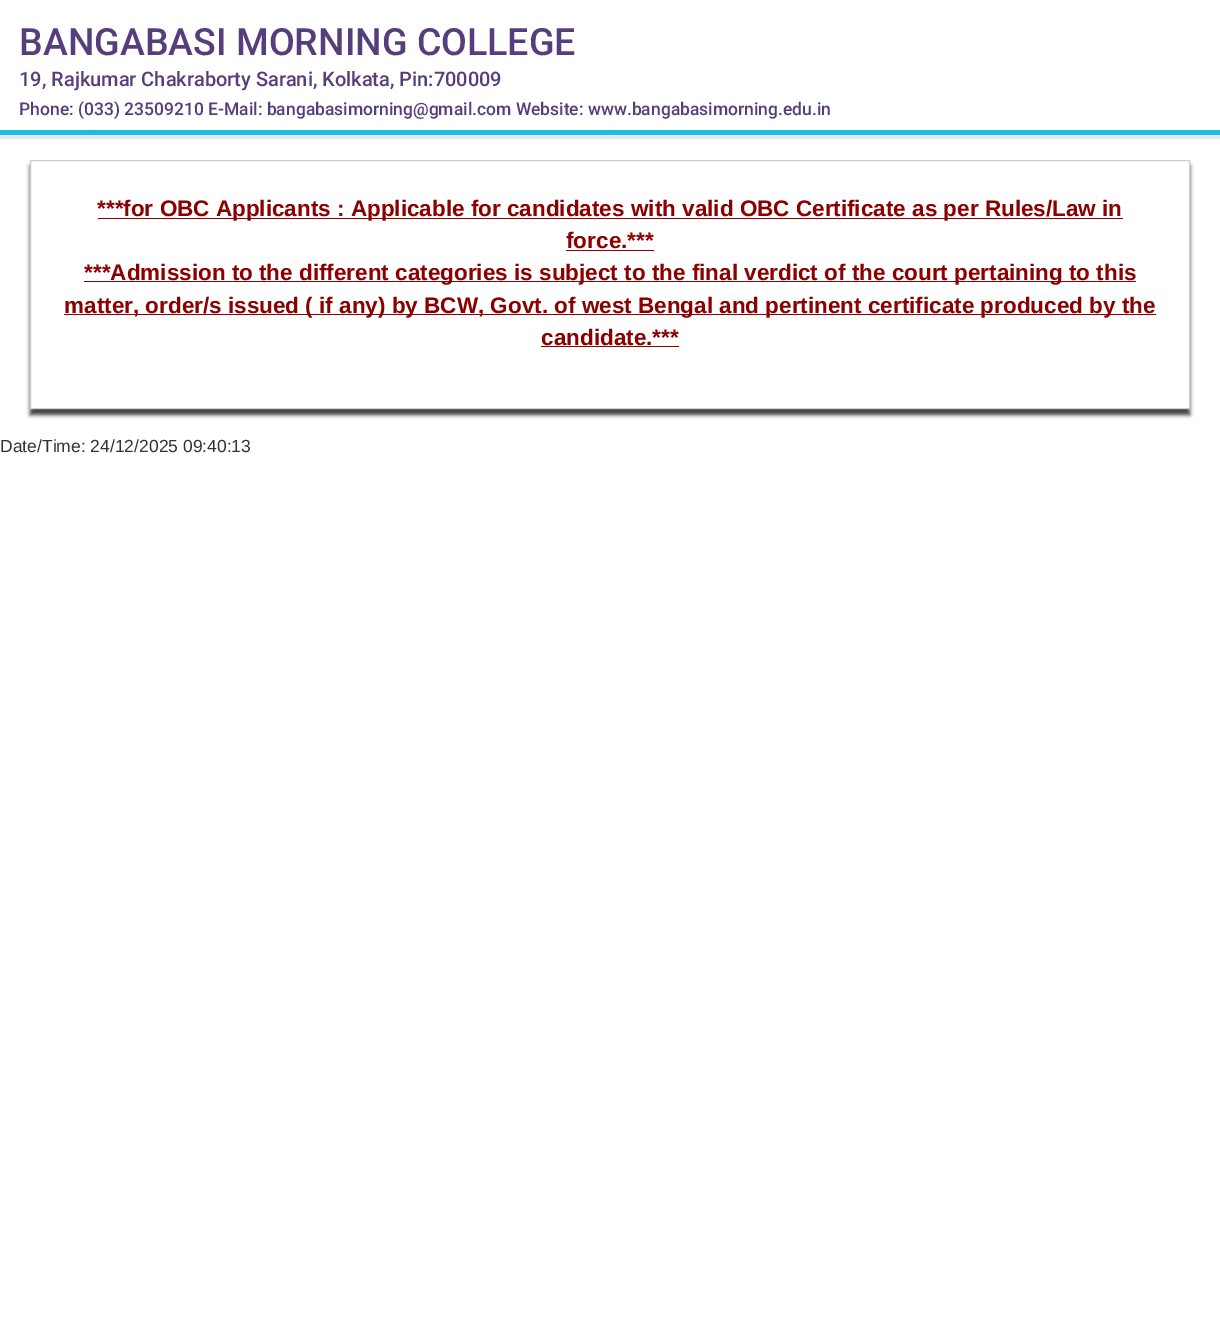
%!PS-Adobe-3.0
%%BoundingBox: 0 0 1220 1319
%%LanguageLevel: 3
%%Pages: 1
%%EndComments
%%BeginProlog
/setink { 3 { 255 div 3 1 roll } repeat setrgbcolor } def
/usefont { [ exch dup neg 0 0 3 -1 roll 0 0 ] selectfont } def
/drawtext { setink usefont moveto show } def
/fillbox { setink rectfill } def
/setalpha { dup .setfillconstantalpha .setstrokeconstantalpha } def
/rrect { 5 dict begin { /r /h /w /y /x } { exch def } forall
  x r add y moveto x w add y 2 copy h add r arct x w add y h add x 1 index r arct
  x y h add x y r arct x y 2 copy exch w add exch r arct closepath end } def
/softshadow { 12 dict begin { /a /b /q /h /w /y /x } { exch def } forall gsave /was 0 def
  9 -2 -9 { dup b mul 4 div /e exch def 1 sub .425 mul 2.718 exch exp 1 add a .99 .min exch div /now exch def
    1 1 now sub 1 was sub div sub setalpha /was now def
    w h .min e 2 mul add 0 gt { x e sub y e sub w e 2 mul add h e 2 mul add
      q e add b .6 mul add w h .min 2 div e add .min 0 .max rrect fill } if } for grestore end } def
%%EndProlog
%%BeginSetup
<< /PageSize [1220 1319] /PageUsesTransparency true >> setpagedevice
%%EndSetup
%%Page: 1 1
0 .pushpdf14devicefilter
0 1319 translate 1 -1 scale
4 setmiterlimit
0 0 1220 1319 255 255 255 fillbox
gsave
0 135 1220 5 rectclip
230 230 250 setink
-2 -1 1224 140 0 0.5 1 softshadow
grestore
0 130 1220 5 30 188 227 fillbox
(BANGABASI MORNING COLLEGE) 19 55 /Roboto-Medium 37.5 86 61 124 drawtext
(19, Rajkumar Chakraborty Sarani, Kolkata, Pin:700009) 19 86 /Roboto-Medium 20 86 61 124 drawtext
(Phone: \(033\) 23509210 E-Mail: bangabasimorning@gmail.com Website: www.bangabasimorning.edu.in) 19 115 /Roboto-Medium 17.5 86 61 124 drawtext
gsave
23 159 moveto 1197 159 lineto 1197 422 lineto 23 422 lineto closepath 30 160 moveto 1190 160 lineto 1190 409 lineto 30 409 lineto closepath eoclip newpath
0 0 0 setink
30 166 1160 249 0 2 0.75 softshadow
grestore
204 204 204 setink
30.5 160.5 1159 248 rectstroke
98 218 1025 1 139 0 0 fillbox
(***for OBC Applicants : Applicable for candidates with valid OBC Certificate as per Rules/Law in) 97 216 /LiberationSans-Bold 22.5 139 0 0 drawtext
(force.***) 566 248 /LiberationSans-Bold 22.5 139 0 0 drawtext
566 250 88 1 139 0 0 fillbox
84 281 1052 1 139 0 0 fillbox
(***Admission to the different categories is subject to the final verdict of the court pertaining to this) 84 280 /LiberationSans-Bold 22.5 139 0 0 drawtext
64 314 1092 1 139 0 0 fillbox
(matter, order/s issued \( if any\) by BCW, Govt. of west Bengal and pertinent certificate produced by the) 64 313 /LiberationSans-Bold 22.5 139 0 0 drawtext
(candidate.***) 541 345 /LiberationSans-Bold 22.5 139 0 0 drawtext
541 346 138 1 139 0 0 fillbox
(Date/Time: 24/12/2025 09:40:13) 0 452 /LiberationSans-Regular 17.5 51 51 51 drawtext
.poppdf14devicefilter showpage
%%EOF
